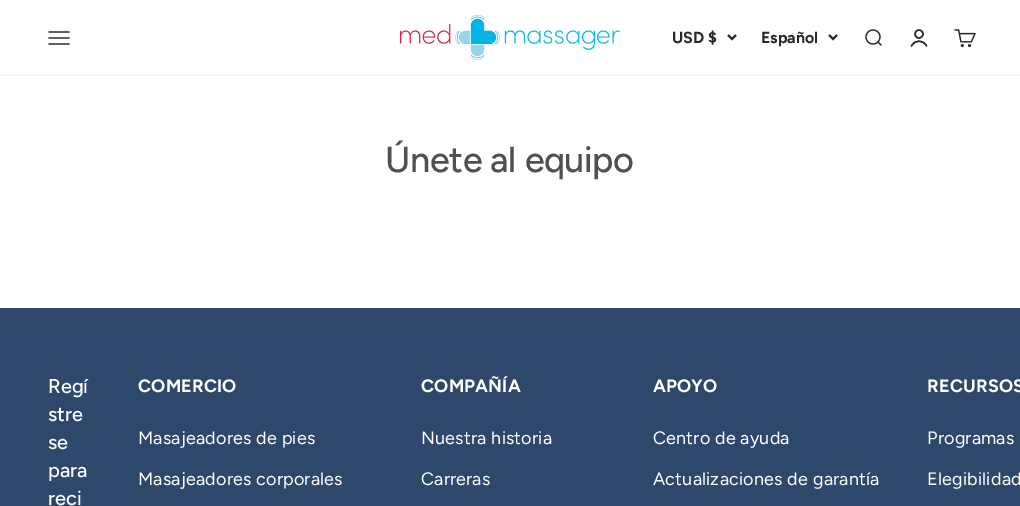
%!PS-Adobe-3.0
%%BoundingBox: 0 0 1020 506
%%LanguageLevel: 3
%%Pages: 1
%%EndComments
%%BeginProlog
/setink { 3 { 255 div 3 1 roll } repeat setrgbcolor } def
/usefont { [ exch dup neg 0 0 3 -1 roll 0 0 ] selectfont } def
/drawtext { setink usefont moveto show } def
/fillbox { setink rectfill } def
/disc { newpath 0 360 arc closepath } def
/drawimage { 5 dict begin { /h /w /y /x /name } { exch def } forall
  gsave x y translate w h scale
  w h 8 [w 0 0 h 0 0] name (r) file false 3 colorimage grestore end } def
%%EndProlog
%%BeginSetup
<< /PageSize [1020 506] >> setpagedevice
%%EndSetup
%%Page: 1 1
0 506 translate 1 -1 scale
4 setmiterlimit
0 0 1020 506 255 255 255 fillbox
0 75 1020 1 242 242 242 fillbox
(assets/img1.rgb) 48 31 22 14 drawimage
(assets/img2.rgb) 400 15 220 45 drawimage
(USD $) 672 43 /Figtree-Bold 16 41 41 41 drawtext
2 setlinewidth
728 35 moveto 732 39 lineto 736 35 lineto stroke
(Español) 761 43 /Figtree-Bold 16 41 41 41 drawtext
829 35 moveto 833 39 lineto 837 35 lineto stroke
(assets/img3.rgb) 865 29 17 17 drawimage
1.5 setlinewidth
919 34 4 disc stroke
1 setlinecap
911.5 46 moveto 914.5 39.5 923.5 39.5 926.5 46 curveto stroke
(assets/img4.rgb) 954 29 22 19 drawimage
/Figtree-Medium 36 usefont
80 80 80 setink
385 172 moveto -0.4 0 (Únete al equipo) ashow
0 308 1020 198 46 72 107 fillbox
(Regí) 48 393 /Figtree-Medium 20 255 255 255 drawtext
(stre) 48 421 /Figtree-Medium 20 255 255 255 drawtext
(se) 48 449 /Figtree-Medium 20 255 255 255 drawtext
(para) 48 477 /Figtree-Medium 20 255 255 255 drawtext
(reci) 48 505 /Figtree-Medium 20 255 255 255 drawtext
/Figtree-Bold 18 usefont
138 392 moveto 0.2 0 (COMERCIO) ashow
/Figtree-Regular 18 usefont
138 444 moveto 0.2 0 (Masajeadores de pies) ashow
138 485 moveto 0.2 0 (Masajeadores corporales) ashow
/Figtree-Bold 18 usefont
421 392 moveto 0.2 0 (COMPAÑÍA) ashow
/Figtree-Regular 18 usefont
421 444 moveto 0.2 0 (Nuestra historia) ashow
421 485 moveto 0.2 0 (Carreras) ashow
/Figtree-Bold 18 usefont
653 392 moveto 0.2 0 (APOYO) ashow
/Figtree-Regular 18 usefont
653 444 moveto 0.2 0 (Centro de ayuda) ashow
653 485 moveto 0.2 0 (Actualizaciones de garantía) ashow
/Figtree-Bold 18 usefont
927 392 moveto 0.2 0 (RECURSOS) ashow
/Figtree-Regular 18 usefont
927 444 moveto 0.2 0 (Programas) ashow
927 485 moveto 0.2 0 (Elegibilidad) ashow
showpage
%%EOF
